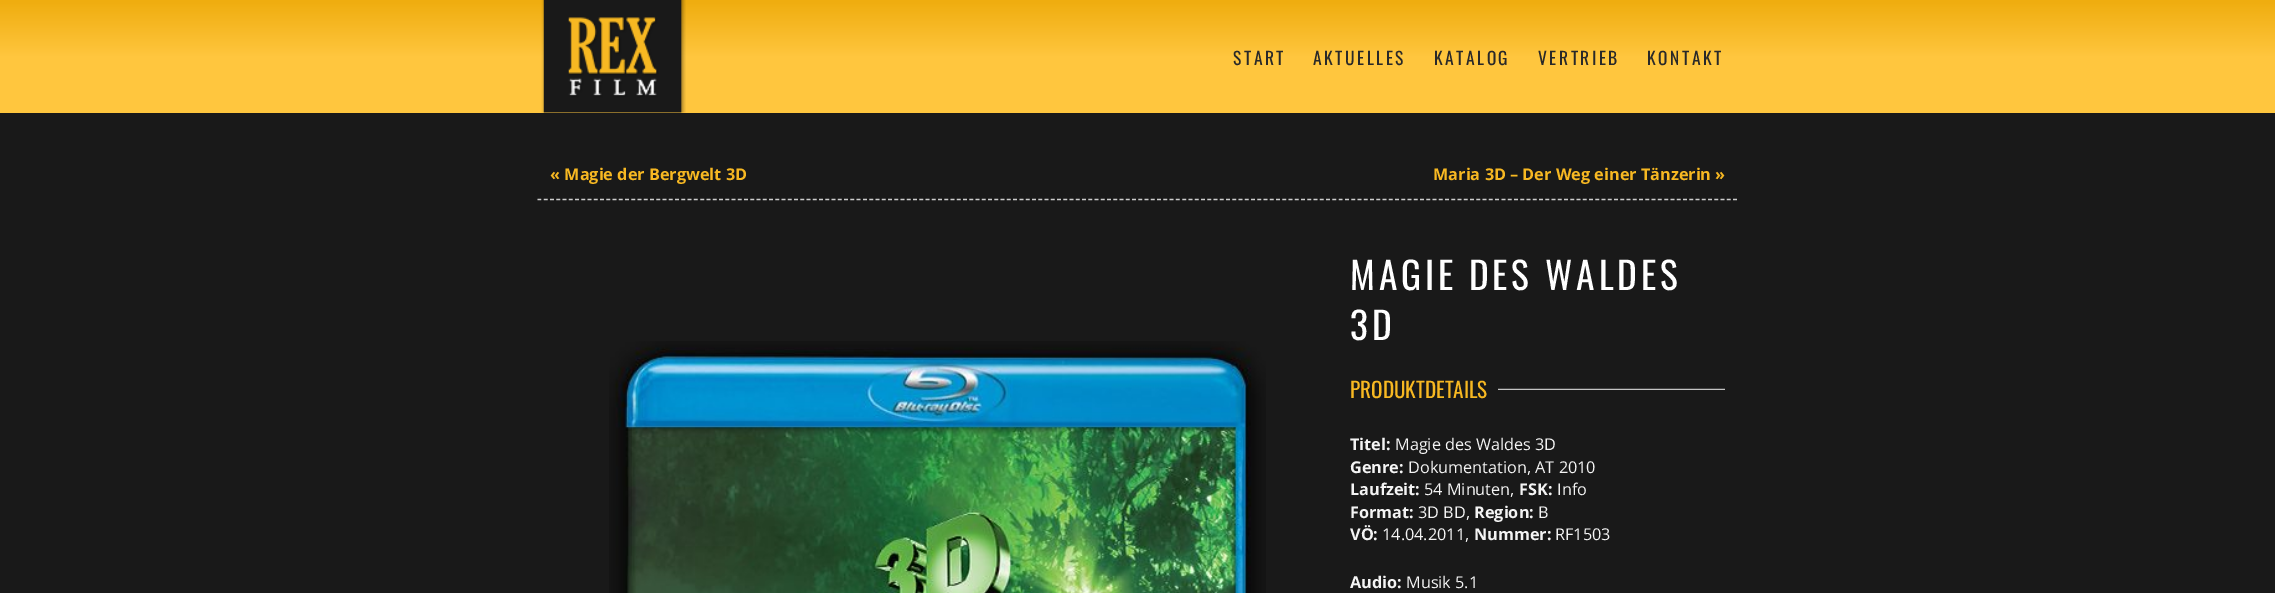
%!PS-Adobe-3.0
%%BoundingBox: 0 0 2275 593
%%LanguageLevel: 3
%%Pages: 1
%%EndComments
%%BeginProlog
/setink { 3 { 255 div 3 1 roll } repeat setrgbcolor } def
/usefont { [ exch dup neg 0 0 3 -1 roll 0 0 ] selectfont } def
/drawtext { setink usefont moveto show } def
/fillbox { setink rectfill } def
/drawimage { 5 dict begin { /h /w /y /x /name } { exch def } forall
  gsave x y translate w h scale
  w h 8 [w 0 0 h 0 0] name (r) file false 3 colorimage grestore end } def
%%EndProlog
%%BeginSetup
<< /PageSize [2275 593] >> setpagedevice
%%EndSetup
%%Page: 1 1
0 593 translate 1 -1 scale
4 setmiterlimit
0 0 2275 593 25 25 25 fillbox
gsave 0 0 moveto 2275 0 lineto 2275 113 lineto 0 113 lineto closepath clip newpath
<< /ShadingType 2 /ColorSpace /DeviceRGB /Coords [1138 0 1138 113] /Extend [true true] /Function << /FunctionType 3 /Domain [0 1] /Functions [<< /FunctionType 2 /Domain [0 1] /C0 [0.937 0.678 0.059] /C1 [0.937 0.678 0.059] /N 1 >> << /FunctionType 2 /Domain [0 1] /C0 [0.937 0.678 0.059] /C1 [1 0.776 0.243] /N 1 >> << /FunctionType 2 /Domain [0 1] /C0 [1 0.776 0.243] /C1 [1 0.776 0.243] /N 1 >>] /Bounds [0.01 0.5] /Encode [0 1 0 1 0 1] >> >> shfill grestore
(assets/img1.rgb) 541 0 145 113 drawimage
/Oswald-Regular 17.5 usefont
41 41 41 setink
1233 65 moveto 2.5 0 (START) ashow
1313 65 moveto 2.5 0 (AKTUELLES) ashow
1434 65 moveto 2.5 0 (KATALOG) ashow
1538 65 moveto 2.5 0 (VERTRIEB) ashow
1647 65 moveto 2.5 0 (KONTAKT) ashow
204 204 204 setink
1.2 setlinewidth
[3.75 2.51] 0 setdash
537.5 199.5 moveto 1737.5 199.5 lineto stroke
(« Magie der Bergwelt 3D) 550 180 /OpenSans-Bold 16.25 247 184 34 drawtext
(Maria 3D – Der Weg einer Tänzerin ») 1433 180 /OpenSans-Bold 16.25 247 184 34 drawtext
(assets/img2.rgb) 609 341 657 252 drawimage
/Oswald-Regular 37.5 usefont
255 255 255 setink
1350 290 moveto 3.75 0 (MAGIE DES WALDES) ashow
1350 340 moveto 3.75 0 (3D) ashow
(assets/img3.rgb) 1498 388 227 2 drawimage
(PRODUKTDETAILS) 1350 398 /Oswald-Regular 21.25 247 184 34 drawtext
(Titel:) 1350 450 /OpenSans-Bold 16.25 244 244 244 drawtext
(Magie des Waldes 3D) 1395 450 /OpenSans-Regular 16.25 244 244 244 drawtext
(Genre:) 1350 473 /OpenSans-Bold 16.25 244 244 244 drawtext
(Dokumentation, AT 2010) 1408 473 /OpenSans-Regular 16.25 244 244 244 drawtext
(Laufzeit:) 1350 495 /OpenSans-Bold 16.25 244 244 244 drawtext
(54 Minuten,) 1424 495 /OpenSans-Regular 16.25 244 244 244 drawtext
(FSK:) 1519 495 /OpenSans-Bold 16.25 244 244 244 drawtext
(Info) 1557 495 /OpenSans-Regular 16.25 244 244 244 drawtext
(Format:) 1350 518 /OpenSans-Bold 16.25 244 244 244 drawtext
(3D BD,) 1418 518 /OpenSans-Regular 16.25 244 244 244 drawtext
(Region:) 1474 518 /OpenSans-Bold 16.25 244 244 244 drawtext
(B) 1538 518 /OpenSans-Regular 16.25 244 244 244 drawtext
(VÖ:) 1350 540 /OpenSans-Bold 16.25 244 244 244 drawtext
(14.04.2011,) 1382 540 /OpenSans-Regular 16.25 244 244 244 drawtext
(Nummer:) 1474 540 /OpenSans-Bold 16.25 244 244 244 drawtext
(RF1503) 1555 540 /OpenSans-Regular 16.25 244 244 244 drawtext
(Audio:) 1350 588 /OpenSans-Bold 16.25 244 244 244 drawtext
(Musik 5.1) 1406 588 /OpenSans-Regular 16.25 244 244 244 drawtext
showpage
%%EOF
